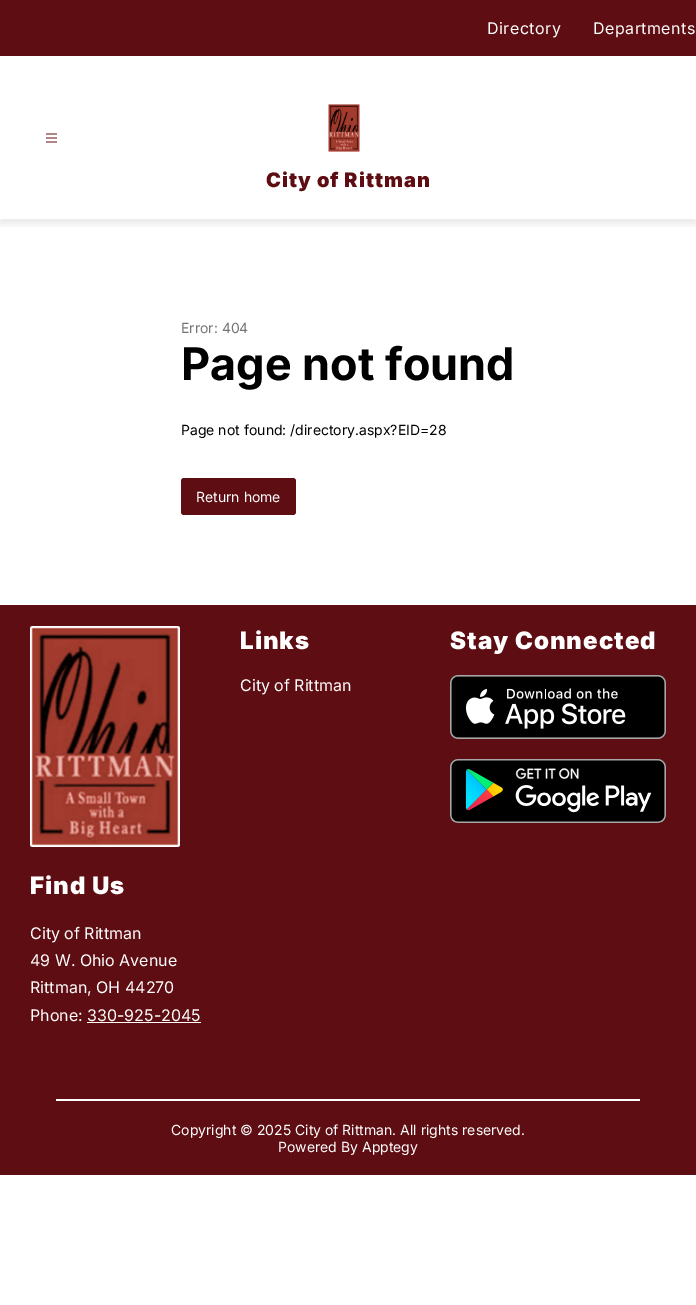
%!PS-Adobe-3.0
%%BoundingBox: 0 0 696 1305
%%LanguageLevel: 3
%%Pages: 1
%%EndComments
%%BeginProlog
/setink { 3 { 255 div 3 1 roll } repeat setrgbcolor } def
/usefont { [ exch dup neg 0 0 3 -1 roll 0 0 ] selectfont } def
/drawtext { setink usefont moveto show } def
/fillbox { setink rectfill } def
/setalpha { dup .setfillconstantalpha .setstrokeconstantalpha } def
/rrect { 5 dict begin { /r /h /w /y /x } { exch def } forall
  x r add y moveto x w add y 2 copy h add r arct x w add y h add x 1 index r arct
  x y h add x y r arct x y 2 copy exch w add exch r arct closepath end } def
/softshadow { 12 dict begin { /a /b /q /h /w /y /x } { exch def } forall gsave /was 0 def
  9 -2 -9 { dup b mul 4 div /e exch def 1 sub .425 mul 2.718 exch exp 1 add a .99 .min exch div /now exch def
    1 1 now sub 1 was sub div sub setalpha /was now def
    w h .min e 2 mul add 0 gt { x e sub y e sub w e 2 mul add h e 2 mul add
      q e add b .6 mul add w h .min 2 div e add .min 0 .max rrect fill } if } for grestore end } def
/drawimage { 5 dict begin { /h /w /y /x /name } { exch def } forall
  gsave x y translate w h scale
  w h 8 [w 0 0 h 0 0] name (r) file false 3 colorimage grestore end } def
%%EndProlog
%%BeginSetup
<< /PageSize [696 1305] /PageUsesTransparency true >> setpagedevice
%%EndSetup
%%Page: 1 1
0 .pushpdf14devicefilter
0 1305 translate 1 -1 scale
4 setmiterlimit
0 0 696 1305 255 255 255 fillbox
gsave
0 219 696 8 rectclip
0 0 0 setink
0 4 696 219 0 5 0.1 softshadow
grestore
0 0 696 56 94 13 18 fillbox
/Inter-Regular 16 usefont
255 255 255 setink
487 34 moveto 0.5 0 (Directory) ashow
593 34 moveto 0.5 0 (Departments) ashow
(assets/img1.rgb) 46 133 11 10 drawimage
(assets/img2.rgb) 328 104 32 48 drawimage
/Inter-Black 20 usefont
94 13 18 setink
266 187 moveto 1 0 (City of Rittman) ashow
(Error: 404) 181 333 /Inter-Regular 14 116 116 116 drawtext
(Page not found) 181 380 /Inter-Bold 45 0 0 0 drawtext
(Page not found: /directory.aspx?EID=28) 181 435 /Inter-Regular 14 0 0 0 drawtext
94 13 18 setink
181 478 115 37 3 rrect fill
(Return home) 196 502 /Inter-Regular 14 255 255 255 drawtext
0 605 696 570 94 13 18 fillbox
/Inter-Black 24 usefont
255 255 255 setink
240 649 moveto 1 0 (Links) ashow
(City of Rittman) 240 691 /Inter-Regular 16 255 255 255 drawtext
/Inter-Black 24 usefont
450 649 moveto 1 0 (Stay Connected) ashow
(assets/img3.rgb) 450 675 216 64 drawimage
(assets/img4.rgb) 450 759 216 64 drawimage
(assets/img5.rgb) 30 626 150 221 drawimage
30 894 moveto 1 0 (Find Us) ashow
(City of Rittman) 30 939 /Inter-Regular 16 255 255 255 drawtext
(49 W. Ohio Avenue) 30 966 /Inter-Regular 16 255 255 255 drawtext
(Rittman, OH 44270) 30 993 /Inter-Regular 16 255 255 255 drawtext
(Phone: 330-925-2045) 30 1021 /Inter-Regular 16 255 255 255 drawtext
87 1022 114 1 255 255 255 fillbox
56 1099 584 2 255 255 255 fillbox
(Copyright © 2025 City of Rittman. All rights reserved.) 171 1135 /Inter-Regular 14 255 255 255 drawtext
(Powered By Apptegy) 278 1152 /Inter-Regular 14 255 255 255 drawtext
.poppdf14devicefilter showpage
%%EOF
